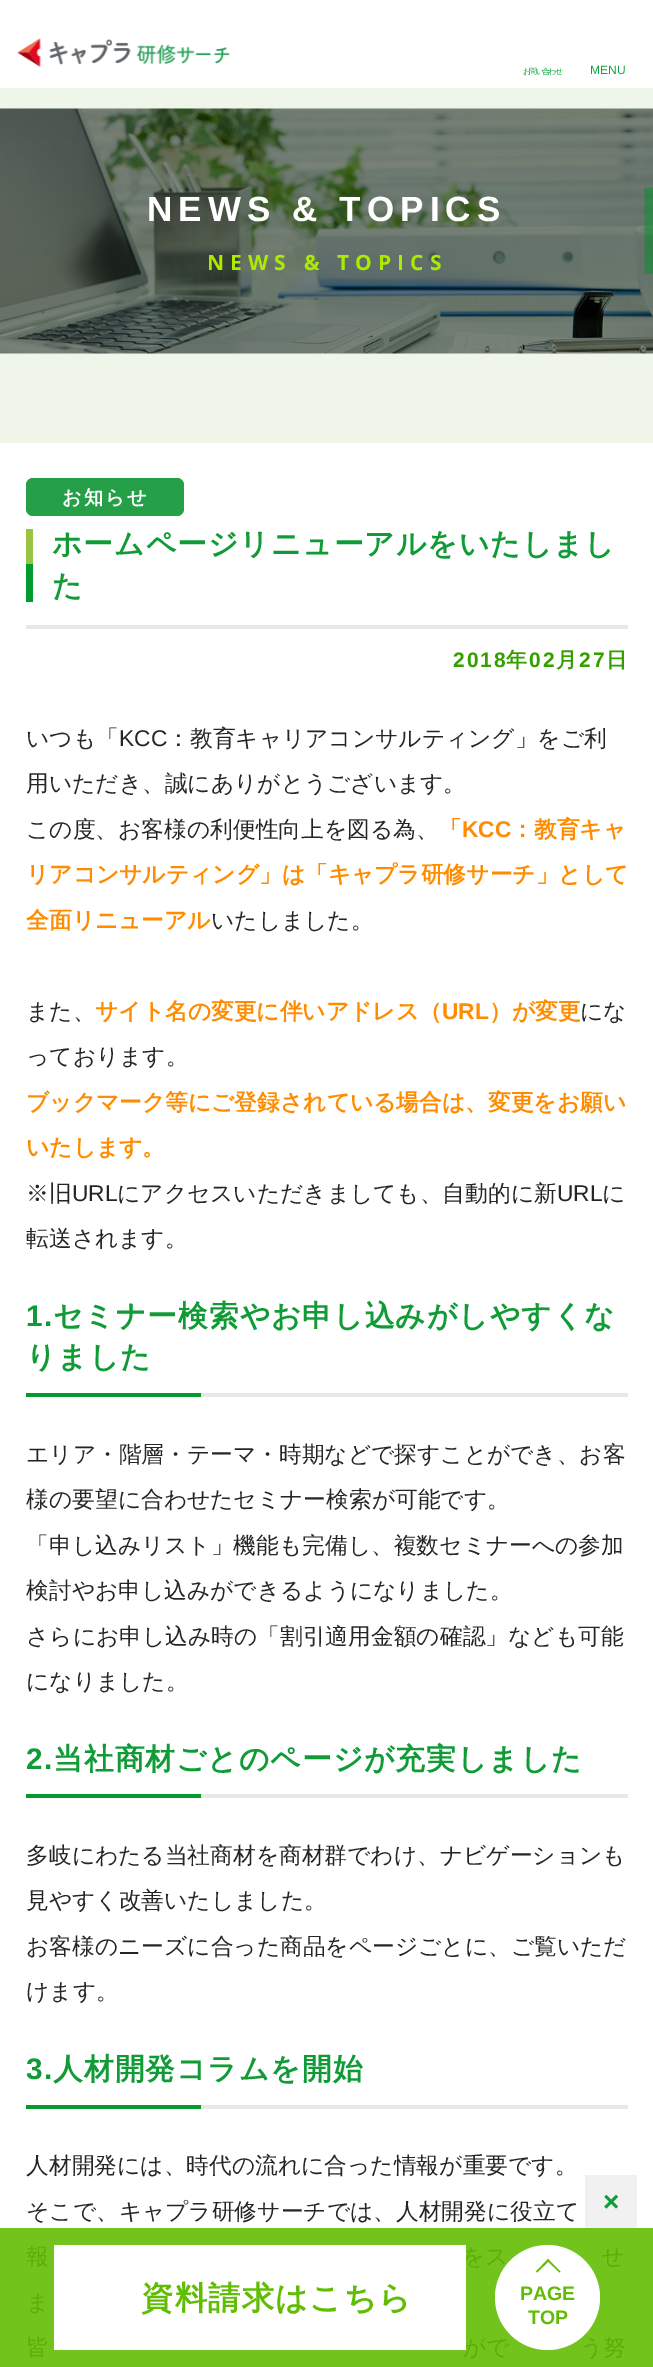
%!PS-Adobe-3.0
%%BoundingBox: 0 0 653 2367
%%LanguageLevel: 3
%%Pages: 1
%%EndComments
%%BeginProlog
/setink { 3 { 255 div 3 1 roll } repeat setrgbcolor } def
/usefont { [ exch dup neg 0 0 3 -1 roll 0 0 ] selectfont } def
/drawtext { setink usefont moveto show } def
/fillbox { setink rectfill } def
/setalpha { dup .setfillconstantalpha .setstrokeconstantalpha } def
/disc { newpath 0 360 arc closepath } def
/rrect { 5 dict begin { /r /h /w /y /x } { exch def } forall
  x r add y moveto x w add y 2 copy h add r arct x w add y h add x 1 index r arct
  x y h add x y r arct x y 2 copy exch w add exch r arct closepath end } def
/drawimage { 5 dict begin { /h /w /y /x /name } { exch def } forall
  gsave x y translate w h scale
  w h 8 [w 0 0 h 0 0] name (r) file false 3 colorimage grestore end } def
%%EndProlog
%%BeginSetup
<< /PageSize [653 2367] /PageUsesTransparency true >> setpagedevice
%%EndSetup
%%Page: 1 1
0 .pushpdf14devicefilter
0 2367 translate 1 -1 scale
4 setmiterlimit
0 0 653 2367 239 245 233 fillbox
0 0 653 88 255 255 255 fillbox
(assets/img1.rgb) 17 38 213 29 drawimage
/WenQuanYiZenHei-Medium 8 usefont
5 166 53 setink
523 74 moveto -1.75 0 (お問い合わせ) ashow
(MENU) 590 74 /LiberationSans-Regular 12 5 166 53 drawtext
(assets/img2.rgb) 0 108 653 246 drawimage
/LiberationSans-Bold 35 usefont
255 255 255 setink
147 221 moveto 6.1 0 (NEWS & TOPICS) ashow
/OpenSans-Bold 21 usefont
171 235 0 setink
207 270 moveto 6.1 0 (NEWS & TOPICS) ashow
0 443 653 1785 255 255 255 fillbox
0 2228 653 139 114 196 29 fillbox
38 160 72 setink
26 478 158 38 7 rrect fill
/WenQuanYiZenHei-Bold 19.25 usefont
255 255 255 setink
62 504 moveto 2 0 (お知らせ) ashow
26 625 602 4 232 232 232 fillbox
26 529 7 35 154 195 66 fillbox
/WenQuanYiZenHei-Bold 29.75 usefont
16 155 55 setink
52 554 moveto 1 0 (ホームページリニューアルをいたしまし) ashow
26 564 7 38 0 156 48 fillbox
16 155 55 setink
52 596 moveto 1 0 (た) ashow
/LiberationSans-Bold 21 usefont
53 159 0 setink
453 667 moveto 2 0 (2018) ashow
/WenQuanYiZenHei-Bold 21 usefont
506 667 moveto 2 0 (年) ashow
/LiberationSans-Bold 21 usefont
529 667 moveto 2 0 (02) ashow
/WenQuanYiZenHei-Bold 21 usefont
556 667 moveto 2 0 (月) ashow
/LiberationSans-Bold 21 usefont
579 667 moveto 2 0 (27) ashow
/WenQuanYiZenHei-Bold 21 usefont
606 667 moveto 2 0 (日) ashow
(いつも「) 26 746 /WenQuanYiZenHei-Medium 22.75 37 37 37 drawtext
(KCC) 119 746 /LiberationSans-Regular 22.75 37 37 37 drawtext
(：教育キャリアコンサルティング」をご利) 167 746 /WenQuanYiZenHei-Medium 22.75 37 37 37 drawtext
(用いただき、誠にありがとうございます。) 26 791 /WenQuanYiZenHei-Medium 22.75 37 37 37 drawtext
(この度、お客様の利便性向上を図る為、) 26 837 /WenQuanYiZenHei-Medium 22.75 37 37 37 drawtext
(「) 439 837 /WenQuanYiZenHei-Bold 22.75 255 140 0 drawtext
(KCC) 462 837 /LiberationSans-Bold 22.75 255 140 0 drawtext
(：教育キャ) 511 837 /WenQuanYiZenHei-Bold 22.75 255 140 0 drawtext
(リアコンサルティング」は「キャプラ研修サーチ」として) 26 882 /WenQuanYiZenHei-Bold 22.75 255 140 0 drawtext
(全面リニューアル) 26 928 /WenQuanYiZenHei-Bold 22.75 255 140 0 drawtext
(いたしました。) 211 928 /WenQuanYiZenHei-Medium 22.75 37 37 37 drawtext
(また、) 26 1019 /WenQuanYiZenHei-Medium 22.75 37 37 37 drawtext
(サイト名の変更に伴いアドレス（) 95 1019 /WenQuanYiZenHei-Bold 22.75 255 140 0 drawtext
(URL) 442 1019 /LiberationSans-Bold 22.75 255 140 0 drawtext
(）が変更) 489 1019 /WenQuanYiZenHei-Bold 22.75 255 140 0 drawtext
(にな) 580 1019 /WenQuanYiZenHei-Medium 22.75 37 37 37 drawtext
(っております。) 26 1064 /WenQuanYiZenHei-Medium 22.75 37 37 37 drawtext
(ブックマーク等にご登録されている場合は、変更をお願い) 26 1110 /WenQuanYiZenHei-Bold 22.75 255 140 0 drawtext
(いたします。) 26 1155 /WenQuanYiZenHei-Bold 22.75 255 140 0 drawtext
(※旧) 26 1201 /WenQuanYiZenHei-Medium 22.75 37 37 37 drawtext
(URL) 72 1201 /LiberationSans-Regular 22.75 37 37 37 drawtext
(にアクセスいただきましても、自動的に新) 117 1201 /WenQuanYiZenHei-Medium 22.75 37 37 37 drawtext
(URL) 557 1201 /LiberationSans-Regular 22.75 37 37 37 drawtext
(に) 602 1201 /WenQuanYiZenHei-Medium 22.75 37 37 37 drawtext
(転送されます。) 26 1246 /WenQuanYiZenHei-Medium 22.75 37 37 37 drawtext
/LiberationSans-Bold 29.75 usefont
16 155 55 setink
26 1326 moveto 1 0 (1.) ashow
/WenQuanYiZenHei-Bold 29.75 usefont
53 1326 moveto 1 0 (セミナー検索やお申し込みがしやすくな) ashow
26 1367 moveto 1 0 (りました) ashow
26 1393 175 4 0 156 48 fillbox
201 1393 427 4 232 232 232 fillbox
(エリア・階層・テーマ・時期などで探すことができ、お客) 26 1462 /WenQuanYiZenHei-Medium 22.75 37 37 37 drawtext
(様の要望に合わせたセミナー検索が可能です。) 26 1507 /WenQuanYiZenHei-Medium 22.75 37 37 37 drawtext
(「申し込みリスト」機能も完備し、複数セミナーへの参加) 26 1553 /WenQuanYiZenHei-Medium 22.75 37 37 37 drawtext
(検討やお申し込みができるようになりました。) 26 1598 /WenQuanYiZenHei-Medium 22.75 37 37 37 drawtext
(さらにお申し込み時の「割引適用金額の確認」なども可能) 26 1644 /WenQuanYiZenHei-Medium 22.75 37 37 37 drawtext
(になりました。) 26 1689 /WenQuanYiZenHei-Medium 22.75 37 37 37 drawtext
/LiberationSans-Bold 29.75 usefont
16 155 55 setink
26 1769 moveto 1 0 (2.) ashow
/WenQuanYiZenHei-Bold 29.75 usefont
53 1769 moveto 1 0 (当社商材ごとのページが充実しました) ashow
26 1794 175 4 0 156 48 fillbox
201 1794 427 4 232 232 232 fillbox
(多岐にわたる当社商材を商材群でわけ、ナビゲーションも) 26 1863 /WenQuanYiZenHei-Medium 22.75 37 37 37 drawtext
(見やすく改善いたしました。) 26 1908 /WenQuanYiZenHei-Medium 22.75 37 37 37 drawtext
(お客様のニーズに合った商品をページごとに、ご覧いただ) 26 1954 /WenQuanYiZenHei-Medium 22.75 37 37 37 drawtext
(けます。) 26 1999 /WenQuanYiZenHei-Medium 22.75 37 37 37 drawtext
/LiberationSans-Bold 29.75 usefont
16 155 55 setink
26 2079 moveto 1 0 (3.) ashow
/WenQuanYiZenHei-Bold 29.75 usefont
53 2079 moveto 1 0 (人材開発コラムを開始) ashow
26 2105 175 4 0 156 48 fillbox
201 2105 427 4 232 232 232 fillbox
(人材開発には、時代の流れに合った情報が重要です。) 26 2173 /WenQuanYiZenHei-Medium 22.75 37 37 37 drawtext
(そこで、キャプラ研修サーチでは、人材開発に役立て) 26 2219 /WenQuanYiZenHei-Medium 22.75 37 37 37 drawtext
(報) 26 2264 /WenQuanYiZenHei-Medium 22.75 92 174 7 drawtext
(をス) 462 2264 /WenQuanYiZenHei-Medium 22.75 92 174 7 drawtext
(せ) 601 2264 /WenQuanYiZenHei-Medium 22.75 92 174 7 drawtext
(ま) 26 2310 /WenQuanYiZenHei-Medium 22.75 92 174 7 drawtext
(皆) 26 2355 /WenQuanYiZenHei-Medium 22.75 92 174 7 drawtext
(がで) 463 2355 /WenQuanYiZenHei-Medium 22.75 92 174 7 drawtext
(う努) 580 2355 /WenQuanYiZenHei-Medium 22.75 92 174 7 drawtext
0.9 setalpha
585 2175 52 53 240 240 240 fillbox
1 setalpha
(×) 603 2211 /LiberationSans-Bold 28 16 155 55 drawtext
54 2245 412 105 255 255 255 fillbox
/WenQuanYiZenHei-Bold 32.25 usefont
97 189 4 setink
141 2309 moveto 1.25 0 (資料請求はこちら) ashow
255 255 255 setink
547.5 2297.5 52.5 disc fill
97 189 4 setink
536 2271.5 moveto 548 2259 lineto 549.5 2260.5 lineto 537 2272.5 lineto closepath fill
547 2260.5 moveto 548 2259 lineto 560.5 2271.5 lineto 559.5 2272.5 lineto closepath fill
(PAGE) 520 2300 /LiberationSans-Bold 19.5 97 189 4 drawtext
(TOP) 528 2324 /LiberationSans-Bold 19.5 97 189 4 drawtext
.poppdf14devicefilter showpage
%%EOF
